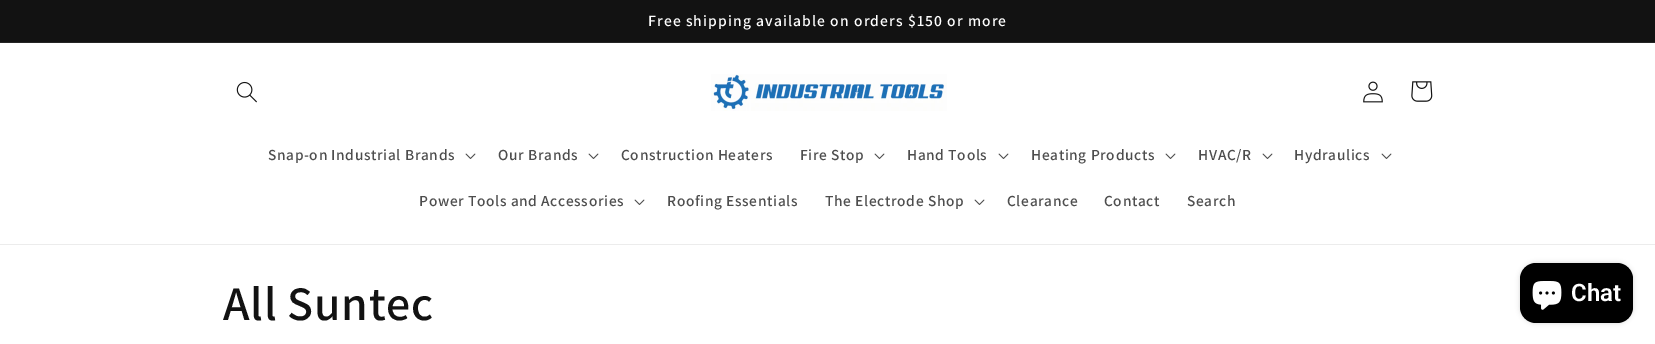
%!PS-Adobe-3.0
%%BoundingBox: 0 0 1655 344
%%LanguageLevel: 3
%%Pages: 1
%%EndComments
%%BeginProlog
/setink { 3 { 255 div 3 1 roll } repeat setrgbcolor } def
/usefont { [ exch dup neg 0 0 3 -1 roll 0 0 ] selectfont } def
/drawtext { setink usefont moveto show } def
/fillbox { setink rectfill } def
/setalpha { dup .setfillconstantalpha .setstrokeconstantalpha } def
/rrect { 5 dict begin { /r /h /w /y /x } { exch def } forall
  x r add y moveto x w add y 2 copy h add r arct x w add y h add x 1 index r arct
  x y h add x y r arct x y 2 copy exch w add exch r arct closepath end } def
/softshadow { 12 dict begin { /a /b /q /h /w /y /x } { exch def } forall gsave /was 0 def
  9 -2 -9 { dup b mul 4 div /e exch def 1 sub .425 mul 2.718 exch exp 1 add a .99 .min exch div /now exch def
    1 1 now sub 1 was sub div sub setalpha /was now def
    w h .min e 2 mul add 0 gt { x e sub y e sub w e 2 mul add h e 2 mul add
      q e add b .6 mul add w h .min 2 div e add .min 0 .max rrect fill } if } for grestore end } def
/drawimage { 5 dict begin { /h /w /y /x /name } { exch def } forall
  gsave x y translate w h scale
  w h 8 [w 0 0 h 0 0] name (r) file false 3 colorimage grestore end } def
%%EndProlog
%%BeginSetup
<< /PageSize [1655 344] /PageUsesTransparency true >> setpagedevice
%%EndSetup
%%Page: 1 1
0 .pushpdf14devicefilter
0 344 translate 1 -1 scale
4 setmiterlimit
0 0 1655 344 255 255 255 fillbox
0 0 1655 42 18 18 18 fillbox
0 42 1655 1 37 37 37 fillbox
/Assistant-SemiBold 15.6 usefont
255 255 255 setink
648 26 moveto 1.1 0 (Free shipping available on orders $150 or more) ashow
0 244 1655 1 236 236 236 fillbox
(assets/img1.rgb) 236 81 21 22 drawimage
(assets/img2.rgb) 711 74 236 37 drawimage
(assets/img3.rgb) 1363 81 20 22 drawimage
(assets/img4.rgb) 1411 81 22 21 drawimage
/Assistant-SemiBold 15.4 usefont
77 77 77 setink
268 160 moveto 0.65 0 (Snap-on Industrial Brands) ashow
(assets/img5.rgb) 465 153 11 6 drawimage
498 160 moveto 0.65 0 (Our Brands) ashow
(assets/img5.rgb) 588 153 11 6 drawimage
621 160 moveto 0.65 0 (Construction Heaters) ashow
800 160 moveto 0.65 0 (Fire Stop) ashow
(assets/img5.rgb) 874 153 11 6 drawimage
907 160 moveto 0.65 0 (Hand Tools) ashow
(assets/img5.rgb) 998 153 11 6 drawimage
1031 160 moveto 0.65 0 (Heating Products) ashow
(assets/img5.rgb) 1165 153 11 6 drawimage
1198 160 moveto 0.65 0 (HVAC/R) ashow
(assets/img5.rgb) 1262 153 11 6 drawimage
1294 160 moveto 0.65 0 (Hydraulics) ashow
(assets/img5.rgb) 1381 153 11 6 drawimage
419 206 moveto 0.65 0 (Power Tools and Accessories) ashow
(assets/img5.rgb) 634 199 11 6 drawimage
667 206 moveto 0.65 0 (Roofing Essentials) ashow
825 206 moveto 0.65 0 (The Electrode Shop) ashow
(assets/img5.rgb) 974 199 11 6 drawimage
1007 206 moveto 0.65 0 (Clearance) ashow
1104 206 moveto 0.65 0 (Contact) ashow
1187 206 moveto 0.65 0 (Search) ashow
/Assistant-SemiBold 48 usefont
18 18 18 setink
223 320 moveto 0.75 0 (All Suntec) ashow
0 0 0 setink
1520 263 113 60 16 2.5 0.15 softshadow
1520 263 113 60 16 rrect fill
(assets/img6.rgb) 1532 281 30 29 drawimage
(Chat) 1571 301 /Roboto-SemiBold 24 255 255 255 drawtext
.poppdf14devicefilter showpage
%%EOF
